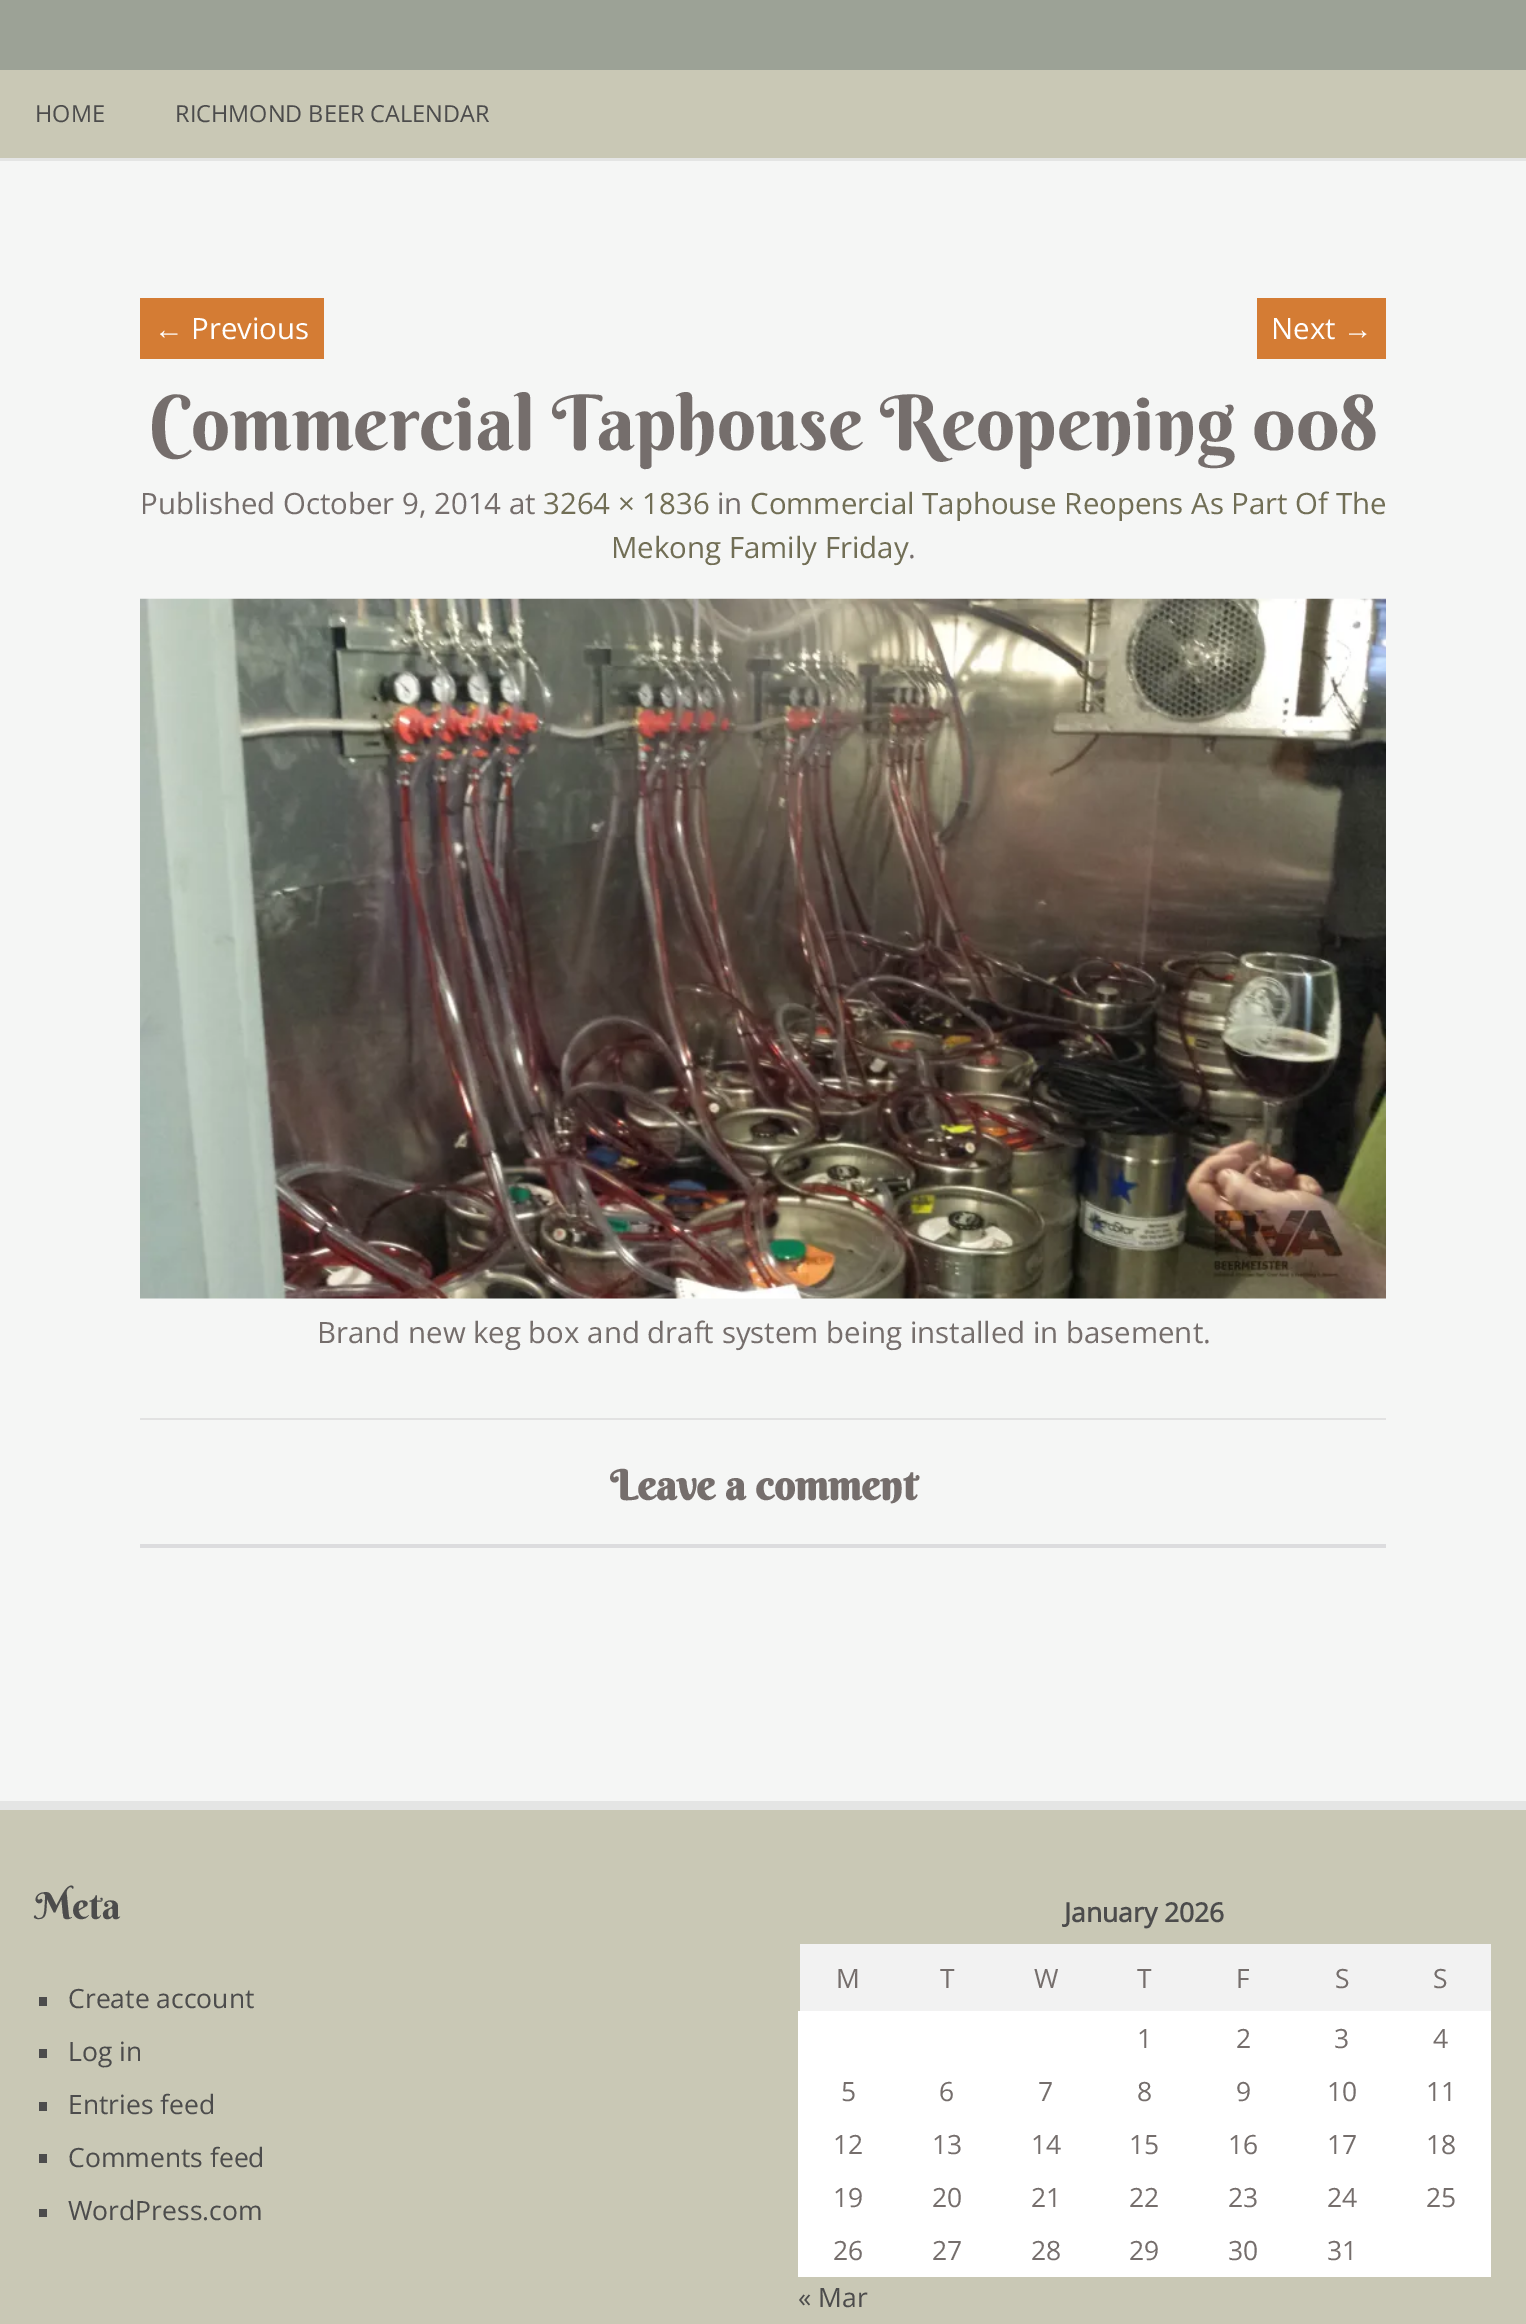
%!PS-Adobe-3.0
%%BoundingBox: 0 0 1526 2324
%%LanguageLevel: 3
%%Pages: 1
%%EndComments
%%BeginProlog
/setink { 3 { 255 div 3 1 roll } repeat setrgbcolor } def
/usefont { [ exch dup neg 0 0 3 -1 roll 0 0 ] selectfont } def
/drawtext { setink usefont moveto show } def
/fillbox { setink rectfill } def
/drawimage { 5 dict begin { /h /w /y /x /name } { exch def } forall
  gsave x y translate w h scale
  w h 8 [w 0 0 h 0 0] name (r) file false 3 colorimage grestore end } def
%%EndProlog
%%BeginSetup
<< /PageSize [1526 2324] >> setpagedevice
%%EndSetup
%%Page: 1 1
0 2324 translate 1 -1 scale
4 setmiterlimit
0 0 1526 2324 156 162 150 fillbox
0 158 1526 3 228 229 228 fillbox
0 70 1526 88 201 200 181 fillbox
(HOME) 35 122 /OpenSans-Regular 23.5 76 76 76 drawtext
(RICHMOND BEER CALENDAR) 175 122 /OpenSans-Regular 23.5 76 76 76 drawtext
0 161 1526 1640 245 246 245 fillbox
140 298 184 61 212 124 52 fillbox
(←) 154 339 /LiberationSerif-Regular 29.4 255 255 255 drawtext
(Previous) 191 339 /OpenSans-Regular 29.4 255 255 255 drawtext
1257 298 129 61 212 124 52 fillbox
(Next) 1271 339 /OpenSans-Regular 29.4 255 255 255 drawtext
(→) 1343 339 /LiberationSerif-Regular 29.4 255 255 255 drawtext
(Commercial Taphouse Reopening 008) 149 450 /BerkshireSwash-Regular 76.5 117 110 108 drawtext
(Published October 9, 2014 at) 140 514 /OpenSans-Regular 29.4 117 110 108 drawtext
(3264 × 1836) 543 514 /OpenSans-Regular 29.4 113 110 85 drawtext
(in) 717 514 /OpenSans-Regular 29.4 117 110 108 drawtext
(Commercial Taphouse Reopens As Part Of The) 750 514 /OpenSans-Regular 29.4 113 110 85 drawtext
(Mekong Family Friday) 611 558 /OpenSans-Regular 29.4 113 110 85 drawtext
(.) 908 558 /OpenSans-Regular 29.4 117 110 108 drawtext
140 1418 1246 2 226 226 226 fillbox
(assets/img1.rgb) 140 598 1246 701 drawimage
(Brand new keg box and draft system being installed in basement.) 317 1343 /OpenSans-Regular 29.4 117 110 108 drawtext
(Leave a comment) 610 1500 /BerkshireSwash-Bold 41.25 117 110 108 drawtext
140 1544 1246 4 220 220 222 fillbox
0 1801 1526 9 228 229 228 fillbox
0 1810 1526 514 201 200 181 fillbox
(Meta) 35 1919 /BerkshireSwash-Regular 37 76 76 76 drawtext
39 1997 8 9 76 76 76 fillbox
(Create account) 68 2008 /OpenSans-Regular 26.5 76 76 76 drawtext
39 2049 8 9 76 76 76 fillbox
(Log in) 68 2061 /OpenSans-Regular 26.5 76 76 76 drawtext
39 2102 8 9 76 76 76 fillbox
(Entries feed) 68 2114 /OpenSans-Regular 26.5 76 76 76 drawtext
39 2154 8 9 76 76 76 fillbox
(Comments feed) 68 2167 /OpenSans-Regular 26.5 76 76 76 drawtext
39 2209 8 8 76 76 76 fillbox
(WordPress.com) 68 2220 /OpenSans-Regular 26.5 76 76 76 drawtext
(January 2026) 1064 1922 /OpenSans-Bold 26.5 76 76 76 drawtext
800 1944 691 67 242 242 242 fillbox
(M) 836 1988 /OpenSans-Regular 26.5 117 110 108 drawtext
(T) 940 1988 /OpenSans-Regular 26.5 117 110 108 drawtext
(W) 1034 1988 /OpenSans-Regular 26.5 117 110 108 drawtext
(T) 1137 1988 /OpenSans-Regular 26.5 117 110 108 drawtext
(F) 1236 1988 /OpenSans-Regular 26.5 117 110 108 drawtext
(S) 1335 1988 /OpenSans-Regular 26.5 117 110 108 drawtext
(S) 1433 1988 /OpenSans-Regular 26.5 117 110 108 drawtext
800 2013 691 50 255 255 255 fillbox
798 2011 693 2 255 255 255 fillbox
798 2063 693 2 255 255 255 fillbox
798 2118 693 2 255 255 255 fillbox
798 2170 693 2 255 255 255 fillbox
798 2223 693 2 255 255 255 fillbox
798 2275 100 2 255 255 255 fillbox
798 2223 2 54 255 255 255 fillbox
798 2170 2 54 255 255 255 fillbox
798 2118 2 54 255 255 255 fillbox
798 2063 2 56 255 255 255 fillbox
798 2011 2 54 255 255 255 fillbox
(1) 1137 2048 /OpenSans-Regular 26.5 117 110 108 drawtext
(2) 1236 2048 /OpenSans-Regular 26.5 117 110 108 drawtext
(3) 1334 2048 /OpenSans-Regular 26.5 117 110 108 drawtext
(4) 1433 2048 /OpenSans-Regular 26.5 117 110 108 drawtext
800 2065 691 53 255 255 255 fillbox
(5) 841 2101 /OpenSans-Regular 26.5 117 110 108 drawtext
(6) 939 2101 /OpenSans-Regular 26.5 117 110 108 drawtext
(7) 1038 2101 /OpenSans-Regular 26.5 117 110 108 drawtext
(8) 1137 2101 /OpenSans-Regular 26.5 117 110 108 drawtext
(9) 1236 2101 /OpenSans-Regular 26.5 117 110 108 drawtext
(10) 1327 2101 /OpenSans-Regular 26.5 117 110 108 drawtext
(11) 1426 2101 /OpenSans-Regular 26.5 117 110 108 drawtext
800 2120 691 50 255 255 255 fillbox
(12) 833 2154 /OpenSans-Regular 26.5 117 110 108 drawtext
(13) 932 2154 /OpenSans-Regular 26.5 117 110 108 drawtext
(14) 1031 2154 /OpenSans-Regular 26.5 117 110 108 drawtext
(15) 1129 2154 /OpenSans-Regular 26.5 117 110 108 drawtext
(16) 1228 2154 /OpenSans-Regular 26.5 117 110 108 drawtext
(17) 1327 2154 /OpenSans-Regular 26.5 117 110 108 drawtext
(18) 1426 2154 /OpenSans-Regular 26.5 117 110 108 drawtext
800 2172 691 51 255 255 255 fillbox
(19) 833 2207 /OpenSans-Regular 26.5 117 110 108 drawtext
(20) 932 2207 /OpenSans-Regular 26.5 117 110 108 drawtext
(21) 1031 2207 /OpenSans-Regular 26.5 117 110 108 drawtext
(22) 1129 2207 /OpenSans-Regular 26.5 117 110 108 drawtext
(23) 1228 2207 /OpenSans-Regular 26.5 117 110 108 drawtext
(24) 1327 2207 /OpenSans-Regular 26.5 117 110 108 drawtext
(25) 1426 2207 /OpenSans-Regular 26.5 117 110 108 drawtext
800 2225 98 50 255 255 255 fillbox
(26) 833 2260 /OpenSans-Regular 26.5 117 110 108 drawtext
898 2225 593 52 255 255 255 fillbox
(27) 932 2260 /OpenSans-Regular 26.5 117 110 108 drawtext
(28) 1031 2260 /OpenSans-Regular 26.5 117 110 108 drawtext
(29) 1129 2260 /OpenSans-Regular 26.5 117 110 108 drawtext
(30) 1228 2260 /OpenSans-Regular 26.5 117 110 108 drawtext
(31) 1327 2260 /OpenSans-Regular 26.5 117 110 108 drawtext
(« Mar) 798 2307 /OpenSans-Regular 26.5 76 76 76 drawtext
showpage
%%EOF
